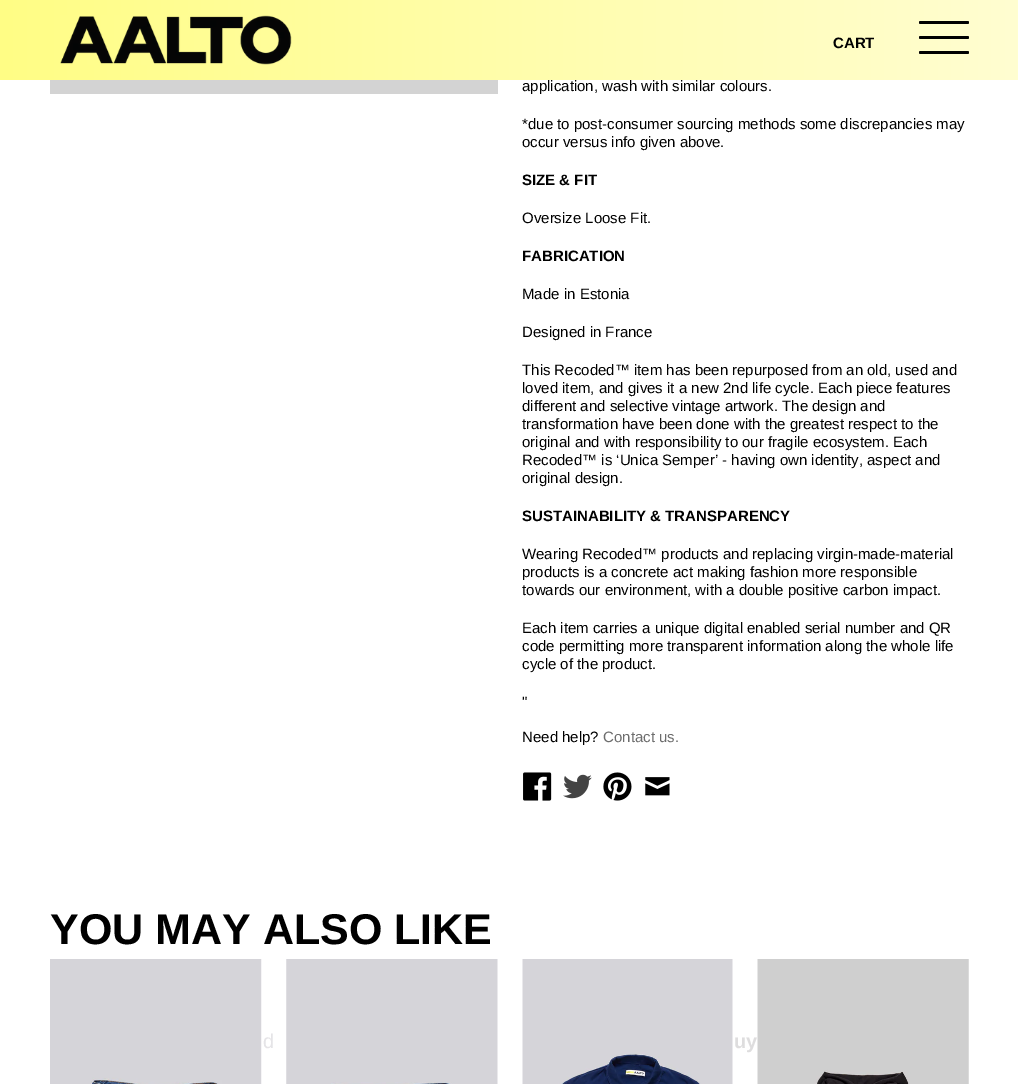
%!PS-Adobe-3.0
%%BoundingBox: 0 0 1018 1084
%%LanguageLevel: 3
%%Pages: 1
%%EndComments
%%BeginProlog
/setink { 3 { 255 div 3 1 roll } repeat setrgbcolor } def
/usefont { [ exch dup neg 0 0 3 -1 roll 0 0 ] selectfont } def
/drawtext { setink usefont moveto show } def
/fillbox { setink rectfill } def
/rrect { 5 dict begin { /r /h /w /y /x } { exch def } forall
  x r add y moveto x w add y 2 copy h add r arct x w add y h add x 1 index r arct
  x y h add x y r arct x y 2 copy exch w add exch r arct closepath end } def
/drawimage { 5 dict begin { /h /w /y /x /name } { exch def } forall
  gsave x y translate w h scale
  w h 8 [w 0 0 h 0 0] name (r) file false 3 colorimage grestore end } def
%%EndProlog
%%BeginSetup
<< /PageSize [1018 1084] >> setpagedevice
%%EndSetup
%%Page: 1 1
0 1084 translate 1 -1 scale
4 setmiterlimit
0 0 1018 1084 255 255 255 fillbox
gsave 0 0 moveto 1018 0 lineto 1018 80 lineto 0 80 lineto closepath clip newpath
<< /ShadingType 2 /ColorSpace /DeviceRGB /Coords [0 40 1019 40] /Extend [true true] /Function << /FunctionType 2 /Domain [0 1] /C0 [1 0.992 0.522] /C1 [1 0.996 0.82] /N 1 >> >> shfill grestore
(assets/img1.rgb) 60 15 232 50 drawimage
(CART) 833 48 /LiberationSans-Bold 15 0 0 0 drawtext
919 21 50 3 1.5 rrect fill
919 36 50 3 1.5 rrect fill
919 51 50 3 1.5 rrect fill
50 80 448 14 211 211 211 fillbox
(application, wash with similar colours.) 522 91 /LiberationSans-Regular 15 0 0 0 drawtext
(*due to post-consumer sourcing methods some discrepancies may) 522 129 /LiberationSans-Regular 15 0 0 0 drawtext
(occur versus info given above.) 522 147 /LiberationSans-Regular 15 0 0 0 drawtext
(SIZE & FIT) 522 185 /LiberationSans-Bold 15 0 0 0 drawtext
(Oversize Loose Fit.) 522 223 /LiberationSans-Regular 15 0 0 0 drawtext
(FABRICATION) 522 261 /LiberationSans-Bold 15 0 0 0 drawtext
(Made in Estonia) 522 299 /LiberationSans-Regular 15 0 0 0 drawtext
(Designed in France) 522 337 /LiberationSans-Regular 15 0 0 0 drawtext
(This Recoded™ item has been repurposed from an old, used and) 522 375 /LiberationSans-Regular 15 0 0 0 drawtext
(loved item, and gives it a new 2nd life cycle. Each piece features) 522 393 /LiberationSans-Regular 15 0 0 0 drawtext
(different and selective vintage artwork. The design and) 522 411 /LiberationSans-Regular 15 0 0 0 drawtext
(transformation have been done with the greatest respect to the) 522 429 /LiberationSans-Regular 15 0 0 0 drawtext
(original and with responsibility to our fragile ecosystem. Each) 522 447 /LiberationSans-Regular 15 0 0 0 drawtext
(Recoded™ is ‘Unica Semper’ - having own identity, aspect and) 522 465 /LiberationSans-Regular 15 0 0 0 drawtext
(original design.) 522 483 /LiberationSans-Regular 15 0 0 0 drawtext
(SUSTAINABILITY & TRANSPARENCY) 522 521 /LiberationSans-Bold 15 0 0 0 drawtext
(Wearing Recoded™ products and replacing virgin-made-material) 522 559 /LiberationSans-Regular 15 0 0 0 drawtext
(products is a concrete act making fashion more responsible) 522 577 /LiberationSans-Regular 15 0 0 0 drawtext
(towards our environment, with a double positive carbon impact.) 522 595 /LiberationSans-Regular 15 0 0 0 drawtext
(Each item carries a unique digital enabled serial number and QR) 522 633 /LiberationSans-Regular 15 0 0 0 drawtext
(code permitting more transparent information along the whole life) 522 651 /LiberationSans-Regular 15 0 0 0 drawtext
(cycle of the product.) 522 669 /LiberationSans-Regular 15 0 0 0 drawtext
(") 522 707 /LiberationSans-Regular 15 0 0 0 drawtext
(Need help?) 522 742 /LiberationSans-Regular 15 0 0 0 drawtext
(Contact us.) 603 742 /LiberationSans-Regular 15 109 109 109 drawtext
(d) 263 1048 /LiberationSans-Regular 20 229 228 231 drawtext
(assets/img9.rgb) 757 959 212 125 drawimage
(uy) 734 1048 /LiberationSans-Bold 20 222 221 222 drawtext
(assets/img2.rgb) 523 772 29 29 drawimage
(assets/img3.rgb) 563 774 29 25 drawimage
(assets/img4.rgb) 603 772 29 29 drawimage
(assets/img5.rgb) 645 777 25 19 drawimage
(YOU MAY ALSO LIKE) 50 944 /LiberationSans-Bold 43 0 0 0 drawtext
(assets/img6.rgb) 50 959 212 125 drawimage
(assets/img7.rgb) 286 959 212 125 drawimage
(assets/img8.rgb) 522 959 211 125 drawimage
showpage
%%EOF
